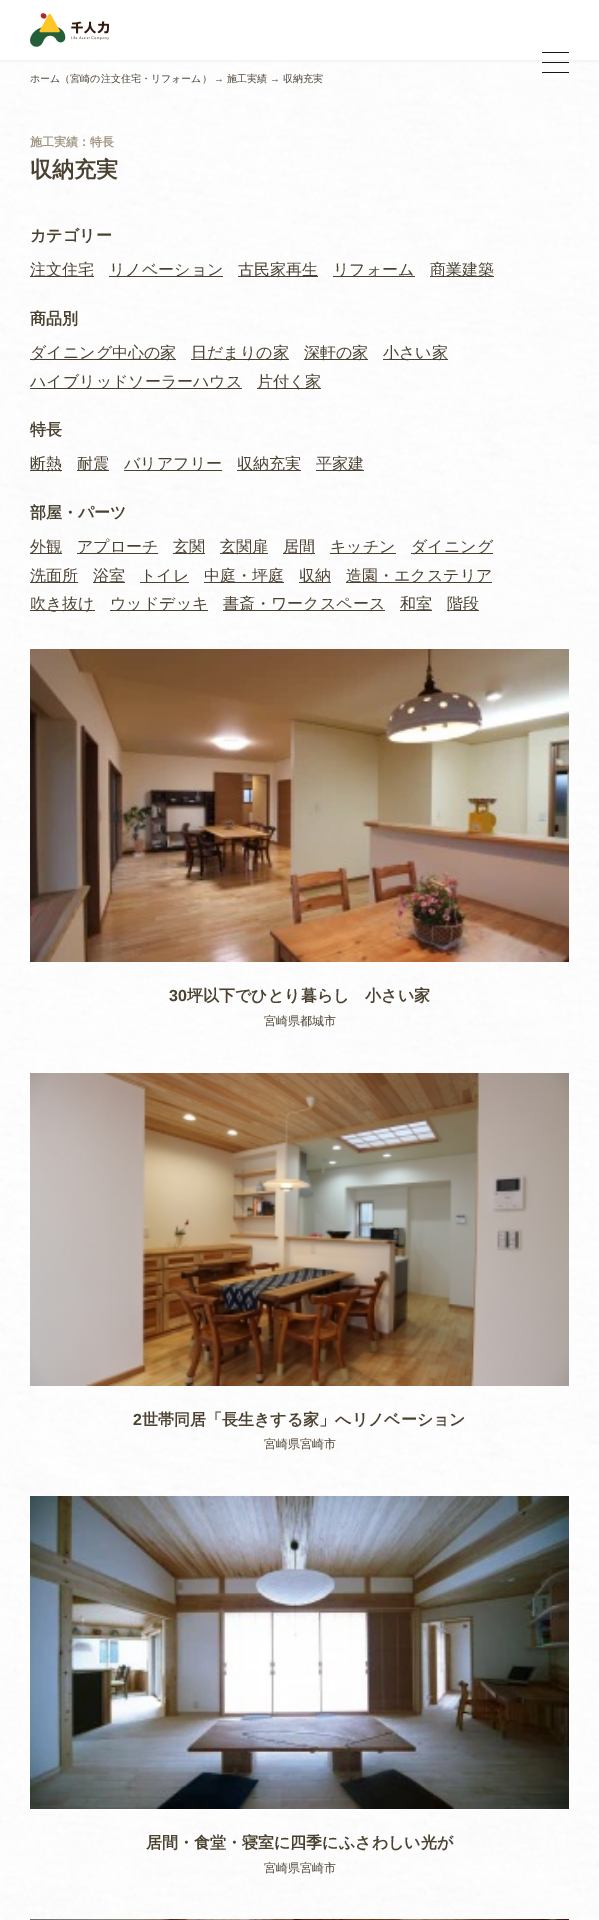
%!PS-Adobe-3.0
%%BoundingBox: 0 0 599 1920
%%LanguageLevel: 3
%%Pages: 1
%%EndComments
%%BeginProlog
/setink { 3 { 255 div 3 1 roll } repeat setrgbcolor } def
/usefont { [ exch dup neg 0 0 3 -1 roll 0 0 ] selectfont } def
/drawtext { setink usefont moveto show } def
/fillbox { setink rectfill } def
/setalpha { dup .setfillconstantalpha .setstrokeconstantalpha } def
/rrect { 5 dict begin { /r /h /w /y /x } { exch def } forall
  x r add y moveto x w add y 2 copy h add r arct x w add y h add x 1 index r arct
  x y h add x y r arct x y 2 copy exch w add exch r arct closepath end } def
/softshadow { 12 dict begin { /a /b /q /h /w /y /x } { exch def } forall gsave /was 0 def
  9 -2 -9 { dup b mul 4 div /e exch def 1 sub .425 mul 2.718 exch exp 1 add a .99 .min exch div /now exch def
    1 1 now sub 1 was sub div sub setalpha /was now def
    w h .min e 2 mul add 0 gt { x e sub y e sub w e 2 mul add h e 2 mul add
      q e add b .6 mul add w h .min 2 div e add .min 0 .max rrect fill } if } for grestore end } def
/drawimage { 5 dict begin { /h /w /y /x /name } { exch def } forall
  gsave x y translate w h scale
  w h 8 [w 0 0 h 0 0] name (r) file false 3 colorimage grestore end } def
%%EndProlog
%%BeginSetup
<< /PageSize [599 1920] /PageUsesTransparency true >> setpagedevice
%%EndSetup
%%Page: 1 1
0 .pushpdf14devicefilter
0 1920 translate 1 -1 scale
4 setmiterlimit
0 0 599 1920 255 255 255 fillbox
(assets/img1.rgb) 0 60 599 1860 drawimage
0 0 0 setink
0 1 599 60 0 1.5 0.05 softshadow
0 0 599 60 255 255 255 fillbox
(assets/img2.rgb) 30 13 79 34 drawimage
25 20 18 setink
542 52 27 1 0.5 rrect fill
542 62 27 1 0.5 rrect fill
542 72 27 1 0.5 rrect fill
(ホーム（宮崎の注文住宅・リフォーム）) 30 82 /WenQuanYiZenHei-Medium 10 75 65 49 drawtext
(→) 214 82 /LiberationSans-Regular 10 75 65 49 drawtext
(施工実績) 227 82 /WenQuanYiZenHei-Medium 10 75 65 49 drawtext
(→) 270 82 /LiberationSans-Regular 10 75 65 49 drawtext
(収納充実) 283 82 /WenQuanYiZenHei-Medium 10 75 65 49 drawtext
(施工実績：特長) 30 146 /WenQuanYiZenHei-Bold 12 160 150 129 drawtext
(収納充実) 30 177 /WenQuanYiZenHei-Bold 22 75 65 49 drawtext
(カテゴリー) 30 241 /WenQuanYiZenHei-Bold 16 75 65 49 drawtext
30 276 64 1 75 65 49 fillbox
(注文住宅) 30 275 /WenQuanYiZenHei-Medium 16 75 65 49 drawtext
109 276 114 1 75 65 49 fillbox
(リノベーション) 109 275 /WenQuanYiZenHei-Medium 16 75 65 49 drawtext
238 276 80 1 75 65 49 fillbox
(古民家再生) 238 275 /WenQuanYiZenHei-Medium 16 75 65 49 drawtext
333 276 82 1 75 65 49 fillbox
(リフォーム) 333 275 /WenQuanYiZenHei-Medium 16 75 65 49 drawtext
430 276 64 1 75 65 49 fillbox
(商業建築) 430 275 /WenQuanYiZenHei-Medium 16 75 65 49 drawtext
(商品別) 30 324 /WenQuanYiZenHei-Bold 16 75 65 49 drawtext
30 359 146 1 75 65 49 fillbox
(ダイニング中心の家) 30 358 /WenQuanYiZenHei-Medium 16 75 65 49 drawtext
191 359 98 1 75 65 49 fillbox
(日だまりの家) 191 358 /WenQuanYiZenHei-Medium 16 75 65 49 drawtext
304 359 64 1 75 65 49 fillbox
(深軒の家) 304 358 /WenQuanYiZenHei-Medium 16 75 65 49 drawtext
383 359 65 1 75 65 49 fillbox
(小さい家) 383 358 /WenQuanYiZenHei-Medium 16 75 65 49 drawtext
30 388 212 1 75 65 49 fillbox
(ハイブリッドソーラーハウス) 30 387 /WenQuanYiZenHei-Medium 16 75 65 49 drawtext
257 388 64 1 75 65 49 fillbox
(片付く家) 257 387 /WenQuanYiZenHei-Medium 16 75 65 49 drawtext
(特長) 30 435 /WenQuanYiZenHei-Bold 16 75 65 49 drawtext
30 470 32 1 75 65 49 fillbox
(断熱) 30 469 /WenQuanYiZenHei-Medium 16 75 65 49 drawtext
77 470 32 1 75 65 49 fillbox
(耐震) 77 469 /WenQuanYiZenHei-Medium 16 75 65 49 drawtext
124 470 98 1 75 65 49 fillbox
(バリアフリー) 124 469 /WenQuanYiZenHei-Medium 16 75 65 49 drawtext
237 470 64 1 75 65 49 fillbox
(収納充実) 237 469 /WenQuanYiZenHei-Medium 16 75 65 49 drawtext
316 470 48 1 75 65 49 fillbox
(平家建) 316 469 /WenQuanYiZenHei-Medium 16 75 65 49 drawtext
(部屋・パーツ) 30 518 /WenQuanYiZenHei-Bold 16 75 65 49 drawtext
30 553 32 1 75 65 49 fillbox
(外観) 30 552 /WenQuanYiZenHei-Medium 16 75 65 49 drawtext
77 553 81 1 75 65 49 fillbox
(アプローチ) 77 552 /WenQuanYiZenHei-Medium 16 75 65 49 drawtext
173 553 32 1 75 65 49 fillbox
(玄関) 173 552 /WenQuanYiZenHei-Medium 16 75 65 49 drawtext
220 553 48 1 75 65 49 fillbox
(玄関扉) 220 552 /WenQuanYiZenHei-Medium 16 75 65 49 drawtext
283 553 32 1 75 65 49 fillbox
(居間) 283 552 /WenQuanYiZenHei-Medium 16 75 65 49 drawtext
330 553 66 1 75 65 49 fillbox
(キッチン) 330 552 /WenQuanYiZenHei-Medium 16 75 65 49 drawtext
411 553 82 1 75 65 49 fillbox
(ダイニング) 411 552 /WenQuanYiZenHei-Medium 16 75 65 49 drawtext
30 582 48 1 75 65 49 fillbox
(洗面所) 30 581 /WenQuanYiZenHei-Medium 16 75 65 49 drawtext
93 582 32 1 75 65 49 fillbox
(浴室) 93 581 /WenQuanYiZenHei-Medium 16 75 65 49 drawtext
140 582 49 1 75 65 49 fillbox
(トイレ) 140 581 /WenQuanYiZenHei-Medium 16 75 65 49 drawtext
204 582 80 1 75 65 49 fillbox
(中庭・坪庭) 204 581 /WenQuanYiZenHei-Medium 16 75 65 49 drawtext
299 582 32 1 75 65 49 fillbox
(収納) 299 581 /WenQuanYiZenHei-Medium 16 75 65 49 drawtext
346 582 146 1 75 65 49 fillbox
(造園・エクステリア) 346 581 /WenQuanYiZenHei-Medium 16 75 65 49 drawtext
30 610 65 1 75 65 49 fillbox
(吹き抜け) 30 609 /WenQuanYiZenHei-Medium 16 75 65 49 drawtext
110 610 98 1 75 65 49 fillbox
(ウッドデッキ) 110 609 /WenQuanYiZenHei-Medium 16 75 65 49 drawtext
223 610 162 1 75 65 49 fillbox
(書斎・ワークスペース) 223 609 /WenQuanYiZenHei-Medium 16 75 65 49 drawtext
400 610 32 1 75 65 49 fillbox
(和室) 400 609 /WenQuanYiZenHei-Medium 16 75 65 49 drawtext
447 610 32 1 75 65 49 fillbox
(階段) 447 609 /WenQuanYiZenHei-Medium 16 75 65 49 drawtext
(assets/img3.rgb) 30 649 539 313 drawimage
(30) 169 1001 /LiberationSans-Bold 16 75 65 49 drawtext
(坪以下でひとり暮らし　小さい家) 187 1001 /WenQuanYiZenHei-Bold 16 75 65 49 drawtext
(宮崎県都城市) 264 1025 /WenQuanYiZenHei-Medium 12 75 65 49 drawtext
(assets/img4.rgb) 30 1073 539 313 drawimage
(2) 133 1425 /LiberationSans-Bold 16 75 65 49 drawtext
(世帯同居「長生きする家」へリノベーション) 142 1425 /WenQuanYiZenHei-Bold 16 75 65 49 drawtext
(宮崎県宮崎市) 264 1448 /WenQuanYiZenHei-Medium 12 75 65 49 drawtext
(assets/img5.rgb) 30 1496 539 313 drawimage
(居間・食堂・寝室に四季にふさわしい光が) 146 1848 /WenQuanYiZenHei-Bold 16 75 65 49 drawtext
(宮崎県宮崎市) 264 1872 /WenQuanYiZenHei-Medium 12 75 65 49 drawtext
(assets/img6.rgb) 30 1919 539 1 drawimage
.poppdf14devicefilter showpage
%%EOF
